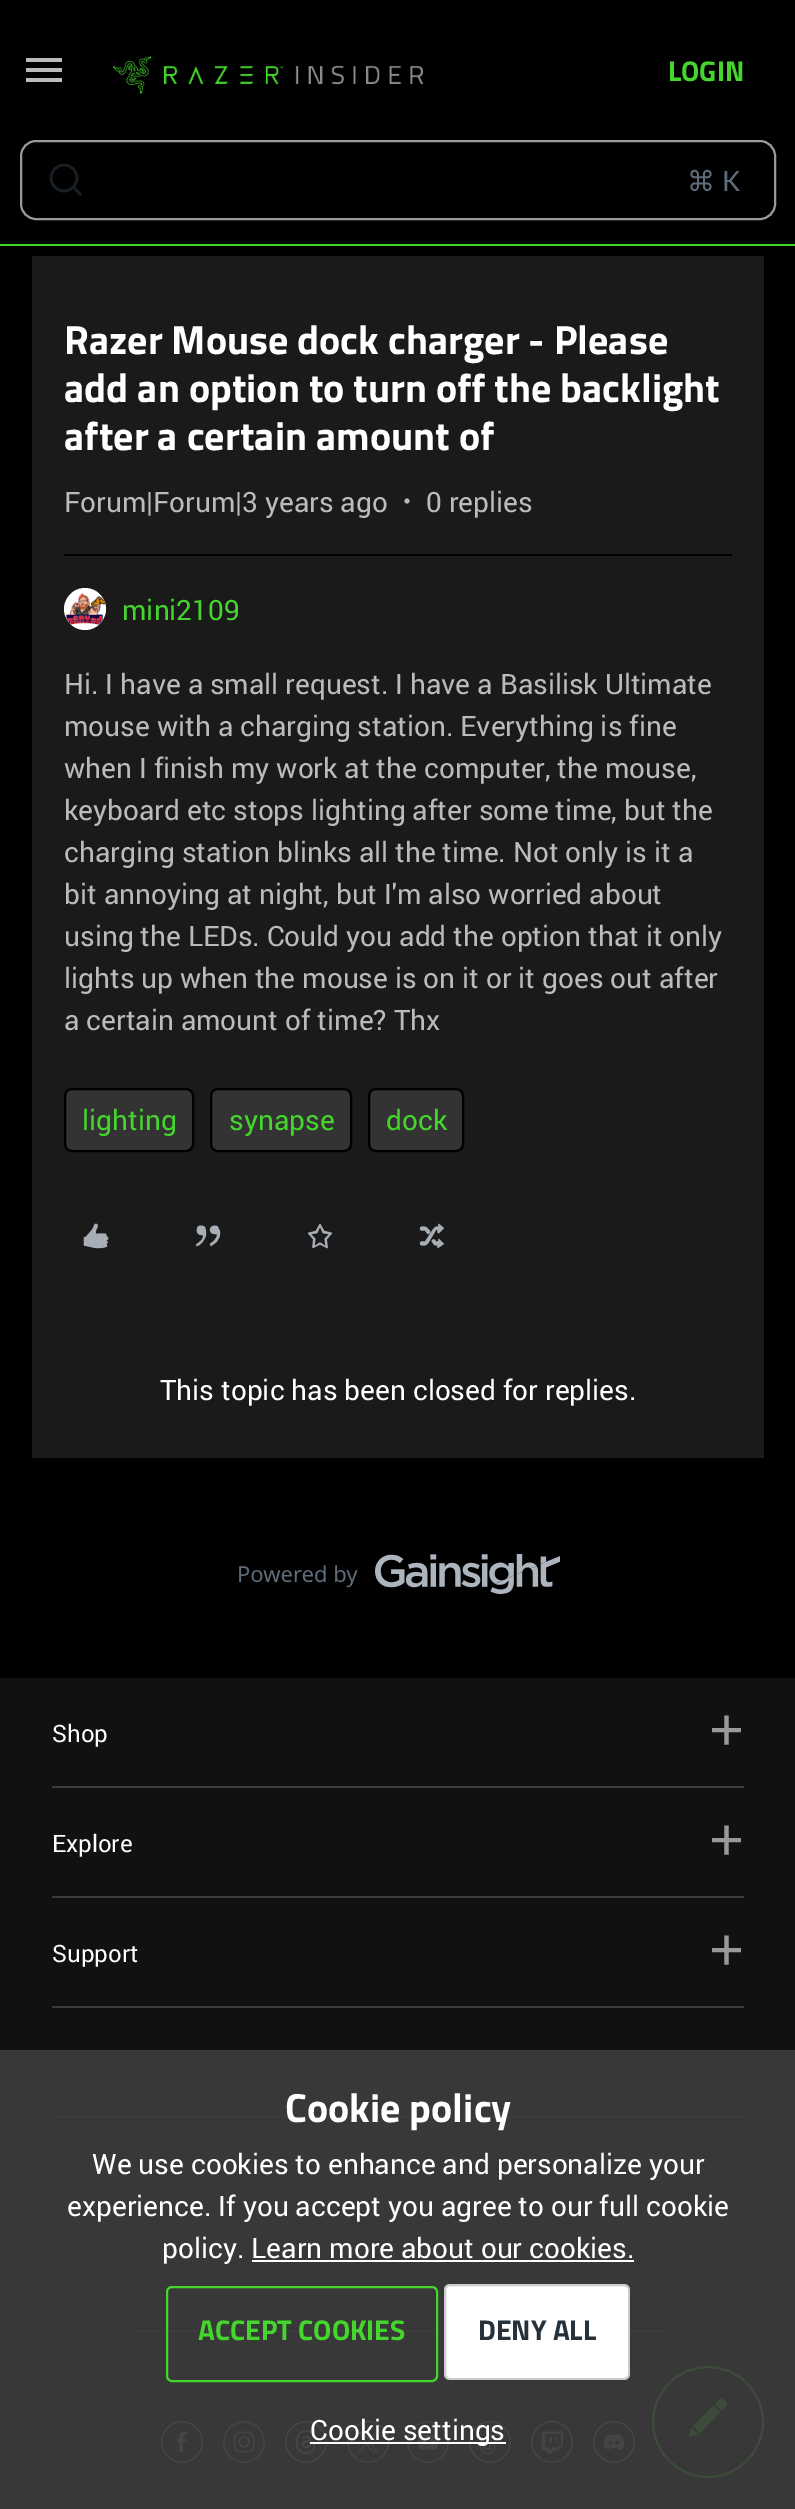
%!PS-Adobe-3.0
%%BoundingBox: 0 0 795 2509
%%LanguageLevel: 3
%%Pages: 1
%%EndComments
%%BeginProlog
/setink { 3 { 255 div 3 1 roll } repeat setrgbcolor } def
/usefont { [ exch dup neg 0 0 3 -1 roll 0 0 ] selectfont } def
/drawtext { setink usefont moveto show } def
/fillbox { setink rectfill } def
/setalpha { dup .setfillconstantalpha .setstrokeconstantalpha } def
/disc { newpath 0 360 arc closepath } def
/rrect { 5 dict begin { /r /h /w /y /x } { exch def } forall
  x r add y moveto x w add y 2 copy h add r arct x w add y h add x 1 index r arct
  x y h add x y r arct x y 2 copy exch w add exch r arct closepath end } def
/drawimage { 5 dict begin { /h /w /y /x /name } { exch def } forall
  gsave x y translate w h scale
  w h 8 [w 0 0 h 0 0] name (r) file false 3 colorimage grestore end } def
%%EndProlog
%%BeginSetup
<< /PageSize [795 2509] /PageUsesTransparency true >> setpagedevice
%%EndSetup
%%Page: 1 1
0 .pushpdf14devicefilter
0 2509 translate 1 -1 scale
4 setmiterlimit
0 0 795 2509 0 0 0 fillbox
0 244 795 2 68 214 44 fillbox
187 187 187 setink
26 82 moveto 62 82 lineto 62 78 lineto 26 78 lineto closepath 26 72 moveto 62 72 lineto 62 68 lineto 26 68 lineto closepath 26 58 moveto 26 62 lineto 62 62 lineto 62 58 lineto closepath fill
(assets/img1.rgb) 112 56 312 38 drawimage
(LOGIN) 668 81 /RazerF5-Bold 28 68 214 44 drawtext
153 153 153 setink
2 setlinewidth
21 141 754 78 15 rrect stroke
24 31 38 setink
2.6 setlinewidth
64 178 13 disc stroke
1 setlinecap
73.5 187.5 moveto 80.5 194.5 lineto stroke
(⌘) 687 191 /DejaVuSans-Regular 28 95 108 122 drawtext
(K) 722 191 /Roboto-Regular 28 95 108 122 drawtext
32 256 732 1202 26 26 26 fillbox
(Razer Mouse dock charger - Please) 64 354 /RazerF5-Bold 40 255 255 255 drawtext
(add an option to turn off the backlight) 64 402 /RazerF5-Bold 40 255 255 255 drawtext
(after a certain amount of) 64 450 /RazerF5-Bold 40 255 255 255 drawtext
(Forum|Forum|3 years ago) 64 512 /Roboto-Regular 28 187 187 187 drawtext
(assets/img2.rgb) 404 498 6 6 drawimage
(0 replies) 426 512 /Roboto-Regular 28 187 187 187 drawtext
64 554 668 2 0 0 0 fillbox
255 255 255 setink
85 609 21 disc fill
(assets/img3.rgb) 65 593 40 32 drawimage
(mini2109) 122 620 /Roboto-Regular 28 68 214 44 drawtext
(Hi. I have a small request. I have a Basilisk Ultimate) 64 694 /Roboto-Regular 28 187 187 187 drawtext
(mouse with a charging station. Everything is fine) 64 736 /Roboto-Regular 28 187 187 187 drawtext
(when I finish my work at the computer, the mouse,) 64 778 /Roboto-Regular 28 187 187 187 drawtext
(keyboard etc stops lighting after some time, but the) 64 820 /Roboto-Regular 28 187 187 187 drawtext
(charging station blinks all the time. Not only is it a) 64 862 /Roboto-Regular 28 187 187 187 drawtext
(bit annoying at night, but I'm also worried about) 64 904 /Roboto-Regular 28 187 187 187 drawtext
(using the LEDs. Could you add the option that it only) 64 946 /Roboto-Regular 28 187 187 187 drawtext
(lights up when the mouse is on it or it goes out after) 64 988 /Roboto-Regular 28 187 187 187 drawtext
(a certain amount of time? Thx) 64 1030 /Roboto-Regular 28 187 187 187 drawtext
51 51 51 setink
65 1089 128 62 7 rrect gsave fill grestore
0 0 0 setink
2 setlinewidth
0 setlinecap
stroke
(lighting) 82 1130 /Roboto-Regular 28 68 214 44 drawtext
51 51 51 setink
211 1089 140 62 7 rrect gsave fill grestore
0 0 0 setink
stroke
(synapse) 229 1130 /Roboto-Regular 28 68 214 44 drawtext
51 51 51 setink
369 1089 94 62 7 rrect gsave fill grestore
0 0 0 setink
stroke
(dock) 386 1130 /Roboto-Regular 28 68 214 44 drawtext
(assets/img4.rgb) 83 1223 26 26 drawimage
(assets/img5.rgb) 195 1225 26 22 drawimage
(assets/img6.rgb) 307 1223 26 26 drawimage
(assets/img7.rgb) 419 1223 26 26 drawimage
(This topic has been closed for replies.) 160 1400 /Roboto-Regular 28 255 255 255 drawtext
(assets/img8.rgb) 239 1554 321 40 drawimage
0 1678 795 831 17 17 17 fillbox
52 1786 692 2 59 59 59 fillbox
(Shop) 52 1742 /Roboto-Regular 24 255 255 255 drawtext
(+) 709 1750 /LiberationSans-Regular 60 153 153 153 drawtext
52 1896 692 2 59 59 59 fillbox
(Explore) 52 1852 /Roboto-Regular 24 255 255 255 drawtext
(+) 709 1860 /LiberationSans-Regular 60 153 153 153 drawtext
52 2006 692 2 59 59 59 fillbox
(Support) 52 1962 /Roboto-Regular 24 255 255 255 drawtext
(+) 709 1970 /LiberationSans-Regular 60 153 153 153 drawtext
52 2116 692 2 59 59 59 fillbox
130 2330 536 2 59 59 59 fillbox
(assets/img9.rgb) 161 2421 42 42 drawimage
(assets/img10.rgb) 223 2421 42 42 drawimage
(assets/img11.rgb) 285 2421 42 42 drawimage
(assets/img12.rgb) 347 2421 42 42 drawimage
(assets/img13.rgb) 407 2421 42 42 drawimage
(assets/img14.rgb) 469 2421 42 42 drawimage
(assets/img15.rgb) 531 2421 42 42 drawimage
(assets/img16.rgb) 593 2421 42 42 drawimage
68 214 44 setink
708 2422 55 disc stroke
693 2426 moveto 713.5 2405.5 lineto 720.5 2412.5 lineto 700 2433 lineto closepath 720.5 2399 moveto 723 2399 lineto 727 2403 lineto 727 2405.5 lineto 722 2411 lineto 715 2404 lineto closepath 689 2437 moveto 691.5 2427.5 lineto 698.5 2434.5 lineto closepath fill
0.9 setalpha
0 2050 795 459 60 60 60 fillbox
1 setalpha
(Cookie policy) 285 2122 /RazerF5-Bold 40 255 255 255 drawtext
(We use cookies to enhance and personalize your) 92 2174 /Roboto-Regular 28 255 255 255 drawtext
(experience. If you accept you agree to our full cookie) 67 2216 /Roboto-Regular 28 255 255 255 drawtext
(policy. Learn more about our cookies.) 162 2258 /Roboto-Regular 28 255 255 255 drawtext
252 2260 382 2 255 255 255 fillbox
68 214 44 setink
167 2287 270 94 5 rrect stroke
(ACCEPT COOKIES) 198 2340 /RazerF5-Bold 28 68 214 44 drawtext
255 255 255 setink
444 2284 186 96 6 rrect fill
0.2 setalpha
0 0 0 setink
445 2285 184 94 5 rrect stroke
1 setalpha
(DENY ALL) 478 2340 /RazerF5-Bold 28 37 49 59 drawtext
310 2442 196 2 255 255 255 fillbox
(Cookie settings) 310 2440 /Roboto-Regular 28 255 255 255 drawtext
.poppdf14devicefilter showpage
%%EOF
